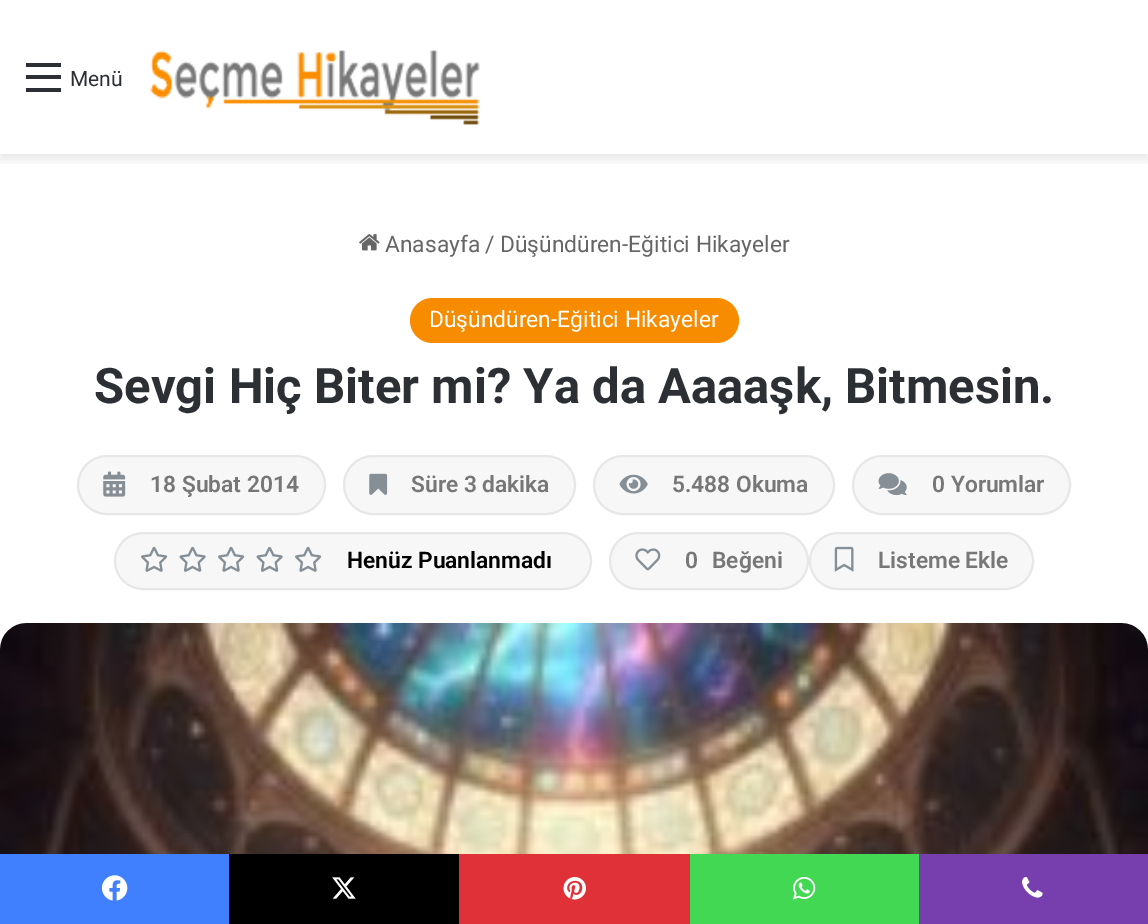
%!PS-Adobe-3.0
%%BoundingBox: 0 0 1148 924
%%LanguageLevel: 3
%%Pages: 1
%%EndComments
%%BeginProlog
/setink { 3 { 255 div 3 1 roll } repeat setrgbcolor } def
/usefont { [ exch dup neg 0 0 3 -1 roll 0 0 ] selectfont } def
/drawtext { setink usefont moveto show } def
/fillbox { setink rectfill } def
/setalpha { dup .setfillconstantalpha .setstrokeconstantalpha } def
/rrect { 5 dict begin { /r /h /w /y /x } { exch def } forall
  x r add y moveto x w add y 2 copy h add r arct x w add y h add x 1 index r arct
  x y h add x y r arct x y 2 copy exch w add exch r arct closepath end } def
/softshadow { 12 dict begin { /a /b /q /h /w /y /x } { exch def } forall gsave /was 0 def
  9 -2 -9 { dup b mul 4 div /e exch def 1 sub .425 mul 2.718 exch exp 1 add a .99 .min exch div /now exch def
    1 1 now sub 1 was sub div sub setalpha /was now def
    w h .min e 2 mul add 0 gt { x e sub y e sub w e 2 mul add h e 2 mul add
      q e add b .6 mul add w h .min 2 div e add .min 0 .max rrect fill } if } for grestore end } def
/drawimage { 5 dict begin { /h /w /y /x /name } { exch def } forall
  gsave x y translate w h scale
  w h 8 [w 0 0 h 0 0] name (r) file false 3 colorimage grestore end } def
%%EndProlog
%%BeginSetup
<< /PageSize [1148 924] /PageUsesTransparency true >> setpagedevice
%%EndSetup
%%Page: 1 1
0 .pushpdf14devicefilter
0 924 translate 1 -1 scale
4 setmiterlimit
0 0 1148 924 255 255 255 fillbox
gsave
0 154 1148 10 rectclip
0 0 0 setink
0 5 1148 154 0 6 0.1 softshadow
grestore
26 75 35 4 44 47 52 fillbox
26 63 35 4 44 47 52 fillbox
26 88 35 4 44 47 52 fillbox
(Menü) 70 86 /Roboto-Regular 21 44 47 52 drawtext
(assets/img1.rgb) 150 50 330 75 drawimage
(assets/img2.rgb) 359 234 21 17 drawimage
(Anasayfa) 385 252 /Roboto-Regular 22.75 102 102 102 drawtext
(/) 485 252 /Roboto-Regular 22.75 102 102 102 drawtext
(Düşündüren-Eğitici Hikayeler) 500 252 /Roboto-Regular 22.75 102 102 102 drawtext
248 140 0 setink
410 298 329 45 22.5 rrect fill
(Düşündüren-Eğitici Hikayeler) 429 327 /Roboto-Regular 22.75 255 255 255 drawtext
(Sevgi Hiç Biter mi? Ya da Aaaaşk, Bitmesin.) 94 403 /Roboto-Bold 49 44 47 52 drawtext
247 247 247 setink
78 456 247 58 29 rrect gsave fill grestore
231 231 231 setink
2 setlinewidth
stroke
(assets/img3.rgb) 103 471 23 26 drawimage
(18 Şubat 2014) 150 492 /Roboto-SemiBold 22.75 119 119 119 drawtext
247 247 247 setink
344 456 231 58 29 rrect gsave fill grestore
231 231 231 setink
stroke
(assets/img4.rgb) 369 473 19 22 drawimage
(Süre 3 dakika) 411 492 /Roboto-SemiBold 22.75 119 119 119 drawtext
247 247 247 setink
594 456 240 58 29 rrect gsave fill grestore
231 231 231 setink
stroke
(assets/img5.rgb) 619 474 29 20 drawimage
(5.488 Okuma) 672 492 /Roboto-SemiBold 22.75 119 119 119 drawtext
247 247 247 setink
853 456 217 58 29 rrect gsave fill grestore
231 231 231 setink
stroke
(assets/img6.rgb) 878 473 29 23 drawimage
(0 Yorumlar) 932 492 /Roboto-SemiBold 22.75 119 119 119 drawtext
247 247 247 setink
115 533 476 56 28 rrect gsave fill grestore
231 231 231 setink
stroke
(assets/img7.rgb) 141 546 27 26 drawimage
(assets/img8.rgb) 179 546 27 26 drawimage
(assets/img7.rgb) 218 546 27 26 drawimage
(assets/img8.rgb) 256 546 27 26 drawimage
(assets/img7.rgb) 295 546 27 26 drawimage
(Henüz Puanlanmadı) 347 568 /Roboto-SemiBold 22.75 0 0 0 drawtext
247 247 247 setink
610 533 198 56 28 rrect gsave fill grestore
231 231 231 setink
stroke
(assets/img9.rgb) 635 548 26 23 drawimage
(0) 685 568 /Roboto-SemiBold 22.75 119 119 119 drawtext
(Beğeni) 712 568 /Roboto-SemiBold 22.75 119 119 119 drawtext
247 247 247 setink
810 533 223 56 28 rrect gsave fill grestore
231 231 231 setink
stroke
(assets/img10.rgb) 834 546 20 26 drawimage
(Listeme Ekle) 878 568 /Roboto-SemiBold 22.75 119 119 119 drawtext
(assets/img11.rgb) 0 623 1148 231 drawimage
0 854 229 70 64 128 255 fillbox
(assets/img12.rgb) 101 875 27 26 drawimage
229 854 230 70 0 0 0 fillbox
(assets/img13.rgb) 332 877 24 22 drawimage
459 854 231 70 225 49 56 fillbox
(assets/img14.rgb) 563 877 23 23 drawimage
690 854 229 70 67 216 84 fillbox
(assets/img15.rgb) 792 876 24 24 drawimage
919 854 229 70 119 62 173 fillbox
(assets/img16.rgb) 1022 877 21 21 drawimage
.poppdf14devicefilter showpage
%%EOF
